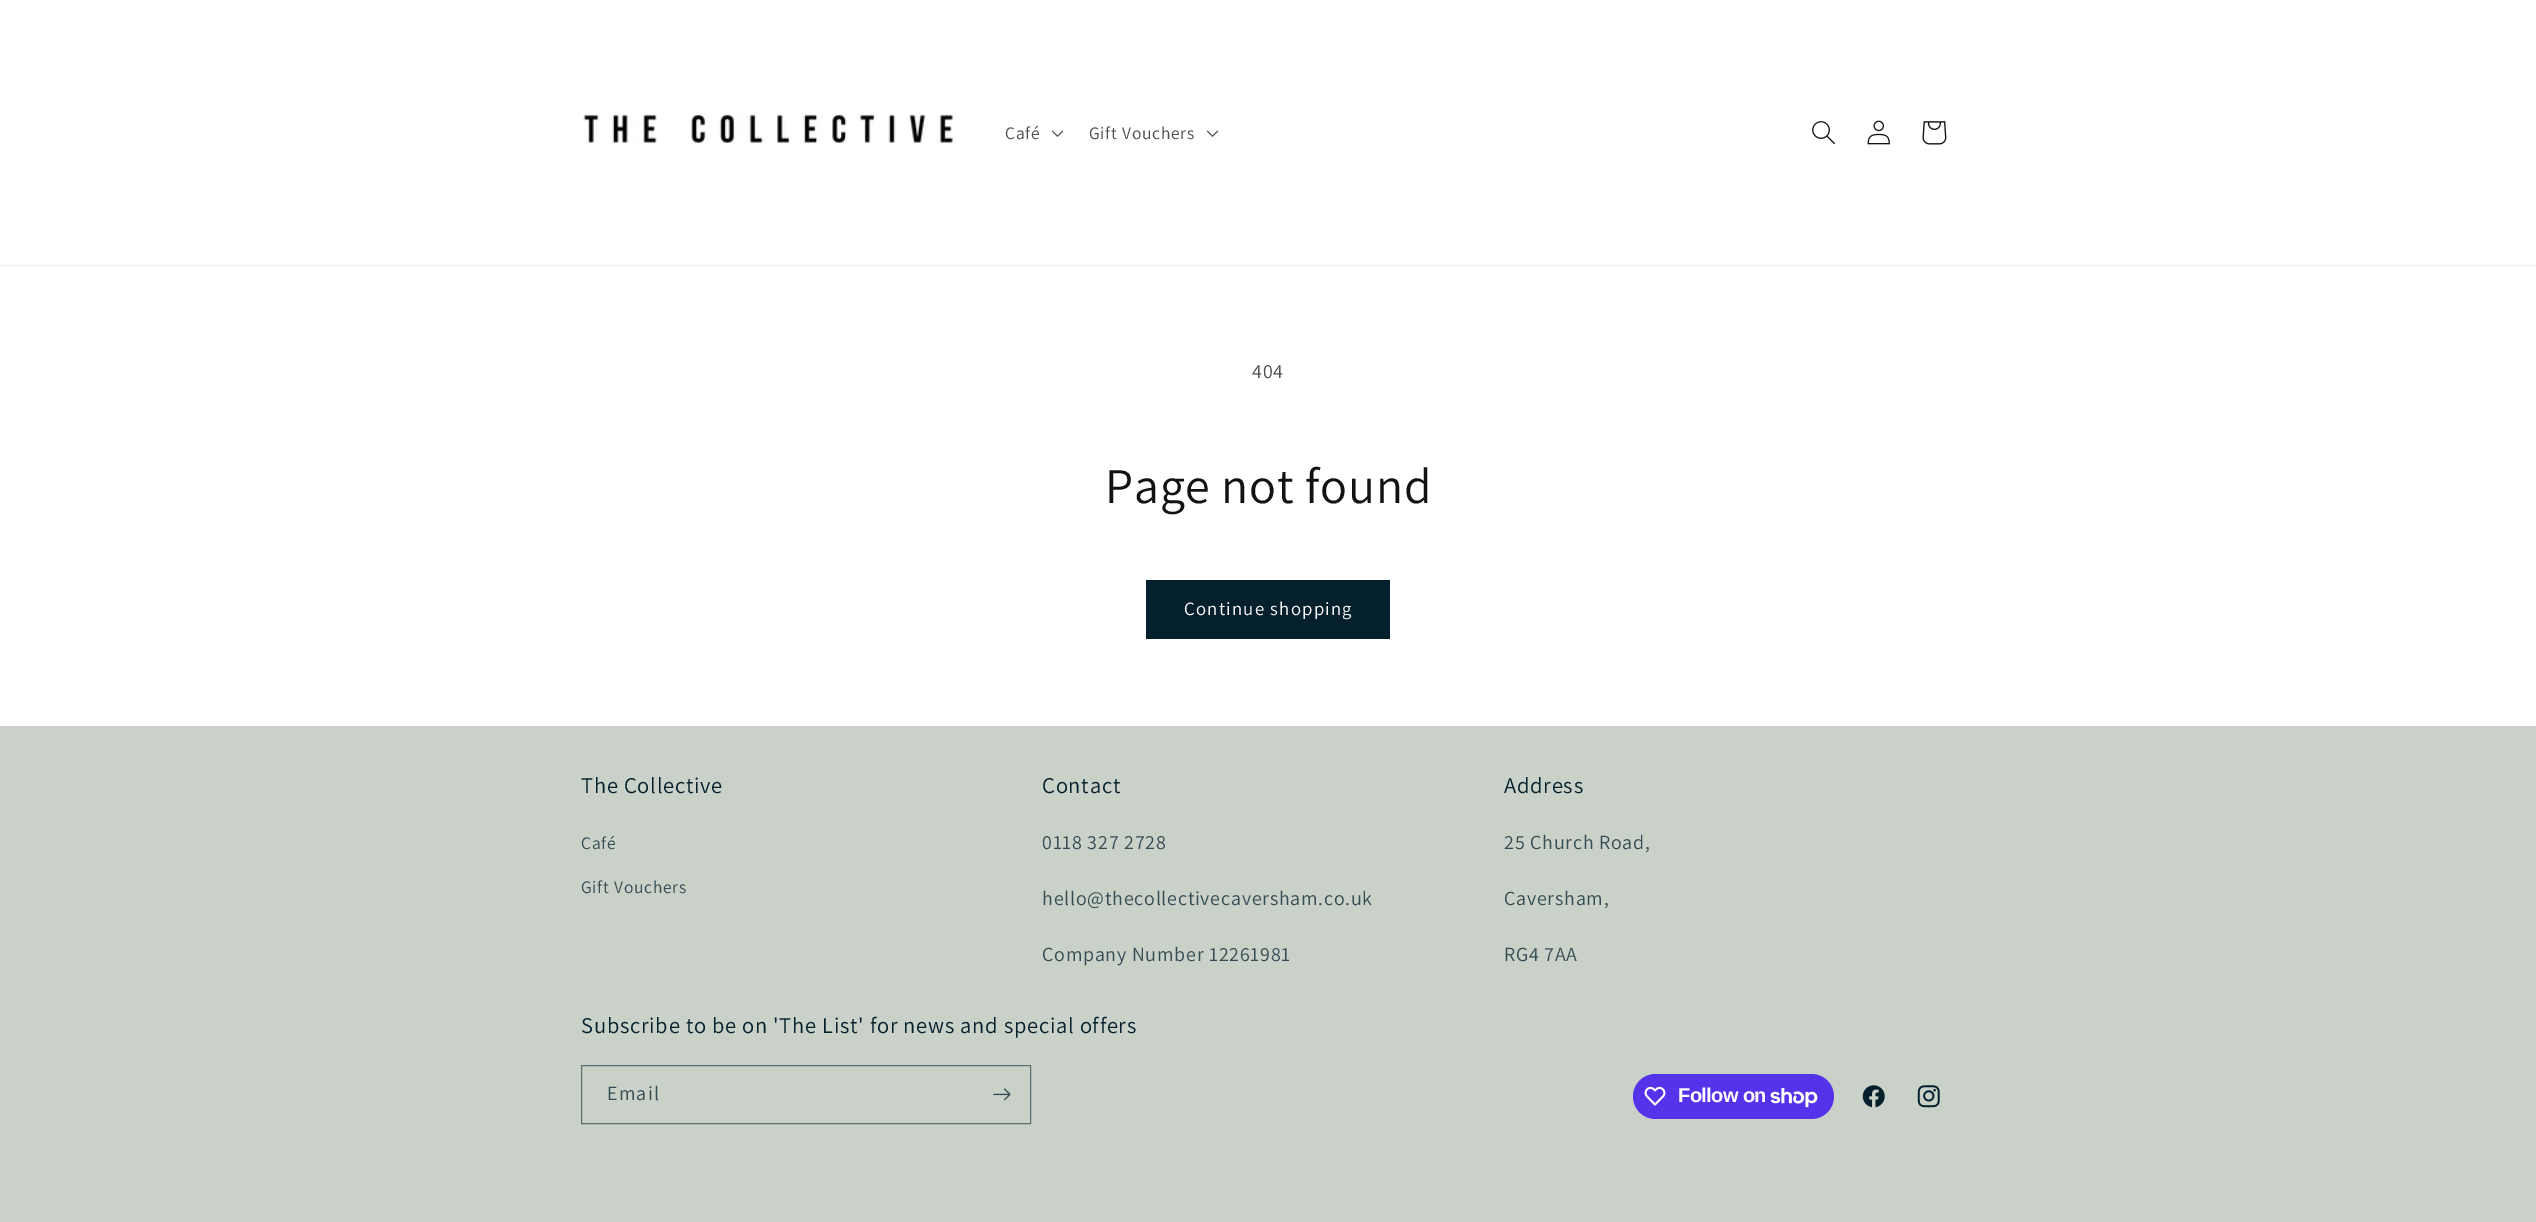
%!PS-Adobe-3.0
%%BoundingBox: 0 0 2536 1222
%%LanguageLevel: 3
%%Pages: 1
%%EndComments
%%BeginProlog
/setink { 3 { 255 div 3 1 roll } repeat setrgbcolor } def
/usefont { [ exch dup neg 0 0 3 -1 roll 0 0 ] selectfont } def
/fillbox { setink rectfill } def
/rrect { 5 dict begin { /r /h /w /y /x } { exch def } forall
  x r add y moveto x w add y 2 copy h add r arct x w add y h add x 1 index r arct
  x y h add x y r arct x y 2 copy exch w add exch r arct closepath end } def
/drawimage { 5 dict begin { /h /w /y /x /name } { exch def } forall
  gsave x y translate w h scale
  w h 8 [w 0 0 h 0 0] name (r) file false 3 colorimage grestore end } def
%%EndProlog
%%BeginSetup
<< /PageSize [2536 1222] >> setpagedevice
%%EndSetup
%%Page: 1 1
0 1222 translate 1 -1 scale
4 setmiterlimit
0 0 2536 1222 255 255 255 fillbox
0 265 2536 1 236 236 236 fillbox
(assets/img1.rgb) 583 114 372 31 drawimage
/Assistant-Regular 17.5 usefont
77 77 77 setink
1005 139 moveto 0.75 0 (Café) ashow
(assets/img2.rgb) 1051 130 13 7 drawimage
1089 139 moveto 0.75 0 (Gift Vouchers) ashow
(assets/img2.rgb) 1206 130 13 7 drawimage
(assets/img3.rgb) 1812 121 23 24 drawimage
(assets/img4.rgb) 1867 120 23 25 drawimage
(assets/img5.rgb) 1922 121 25 24 drawimage
/Assistant-Regular 20 usefont
1252 378 moveto 0.75 0 (404) ashow
/Assistant-Regular 50 usefont
18 18 18 setink
1105 503 moveto 0.75 0 (Page not found) ashow
1146 580 244 59 4 32 44 fillbox
/Assistant-Regular 18.75 usefont
255 255 255 setink
1184 615 moveto 1.25 0 (Continue shopping) ashow
0 726 2536 496 201 209 200 fillbox
/Assistant-Regular 22.5 usefont
4 32 44 setink
581 793 moveto 0.75 0 (The Collective) ashow
/Assistant-Regular 17.5 usefont
53 76 83 setink
581 849 moveto 0.75 0 (Café) ashow
581 893 moveto 0.75 0 (Gift Vouchers) ashow
/Assistant-Regular 22.5 usefont
4 32 44 setink
1042 793 moveto 0.75 0 (Contact) ashow
/Assistant-Regular 20 usefont
53 76 83 setink
1042 849 moveto 0.75 0 (0118 327 2728) ashow
1042 905 moveto 0.75 0 (hello@thecollectivecaversham.co.uk) ashow
1042 961 moveto 0.75 0 (Company Number 12261981) ashow
/Assistant-Regular 22.5 usefont
4 32 44 setink
1504 793 moveto 0.75 0 (Address) ashow
/Assistant-Regular 20 usefont
53 76 83 setink
1504 849 moveto 0.75 0 (25 Church Road,) ashow
1504 905 moveto 0.75 0 (Caversham,) ashow
1504 961 moveto 0.75 0 (RG4 7AA) ashow
/Assistant-Regular 22.5 usefont
4 32 44 setink
581 1033 moveto 0.75 0 (Subscribe to be on 'The List' for news and special offers) ashow
93 112 114 setink
581.5 1065.5 449 58 rectstroke
/Assistant-Regular 20 usefont
53 76 83 setink
607 1100 moveto 1.25 0 (Email) ashow
(assets/img6.rgb) 993 1088 18 13 drawimage
84 51 235 setink
1633 1074 201 45 22.5 rrect fill
(assets/img7.rgb) 1644 1086 22 20 drawimage
/LiberationSans-Bold 20 usefont
255 255 255 setink
1678 1102 moveto -0.6 0 (Follow on) ashow
(assets/img8.rgb) 1770 1088 48 20 drawimage
(assets/img9.rgb) 1862 1085 23 23 drawimage
(assets/img10.rgb) 1917 1085 23 23 drawimage
showpage
%%EOF
